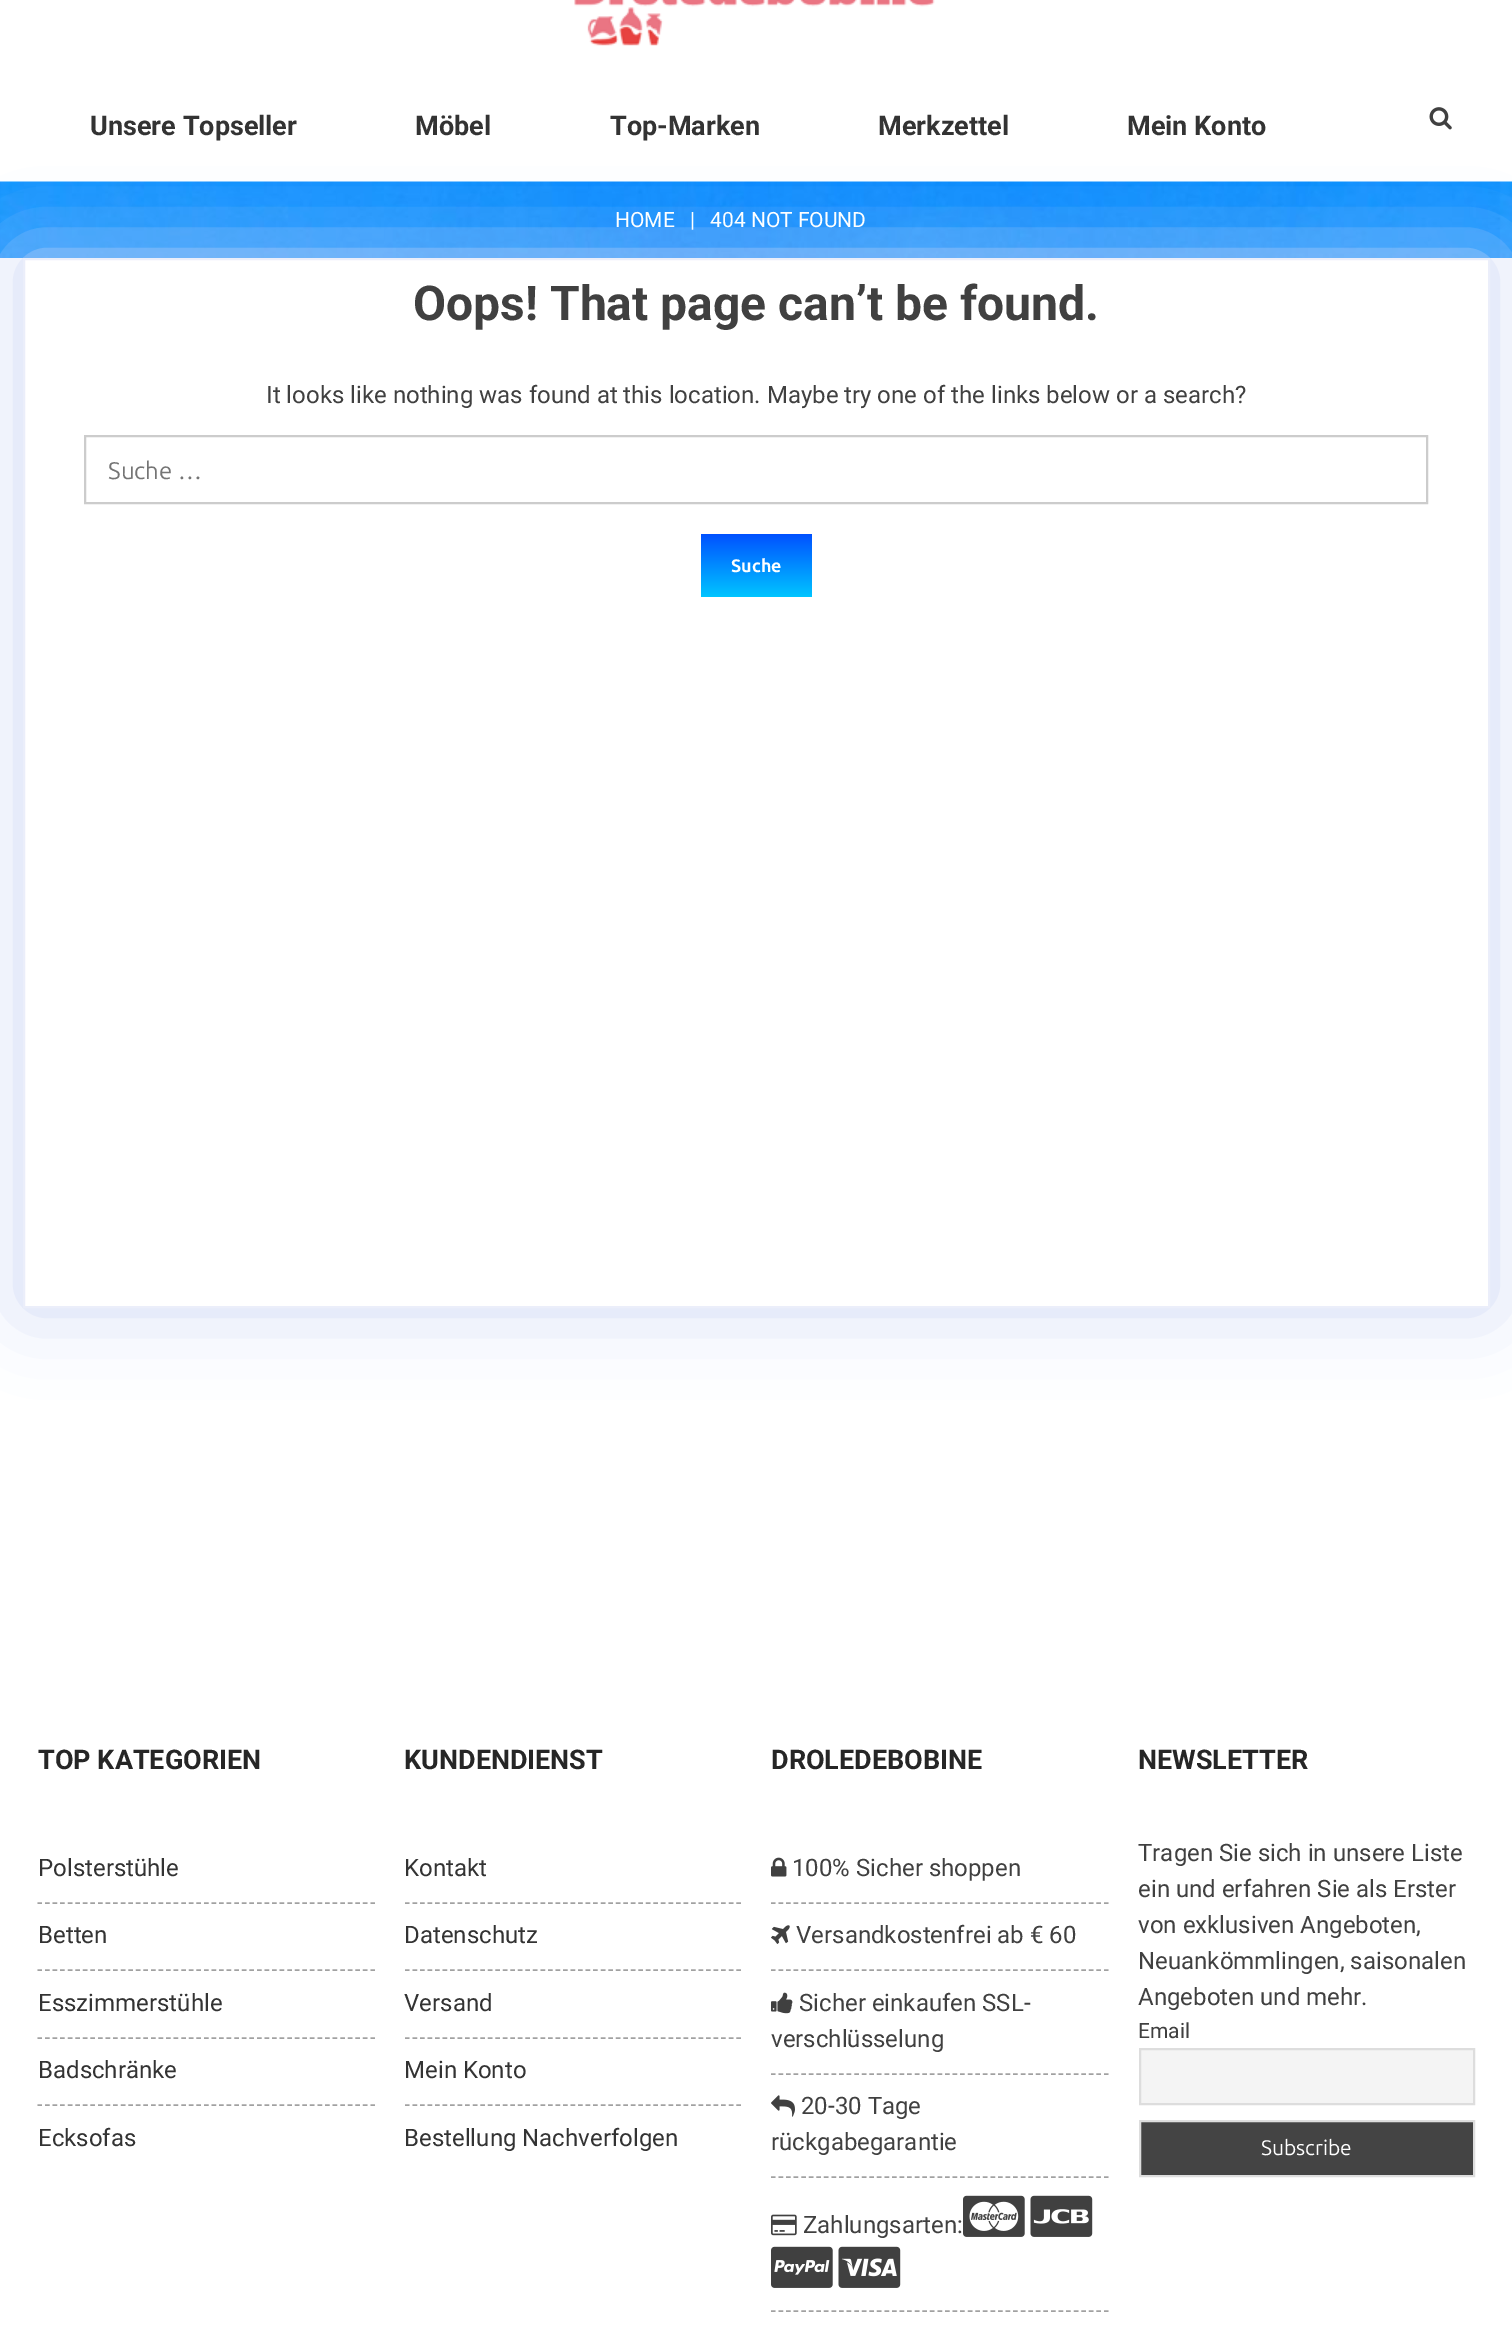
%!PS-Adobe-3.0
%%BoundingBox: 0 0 1512 2331
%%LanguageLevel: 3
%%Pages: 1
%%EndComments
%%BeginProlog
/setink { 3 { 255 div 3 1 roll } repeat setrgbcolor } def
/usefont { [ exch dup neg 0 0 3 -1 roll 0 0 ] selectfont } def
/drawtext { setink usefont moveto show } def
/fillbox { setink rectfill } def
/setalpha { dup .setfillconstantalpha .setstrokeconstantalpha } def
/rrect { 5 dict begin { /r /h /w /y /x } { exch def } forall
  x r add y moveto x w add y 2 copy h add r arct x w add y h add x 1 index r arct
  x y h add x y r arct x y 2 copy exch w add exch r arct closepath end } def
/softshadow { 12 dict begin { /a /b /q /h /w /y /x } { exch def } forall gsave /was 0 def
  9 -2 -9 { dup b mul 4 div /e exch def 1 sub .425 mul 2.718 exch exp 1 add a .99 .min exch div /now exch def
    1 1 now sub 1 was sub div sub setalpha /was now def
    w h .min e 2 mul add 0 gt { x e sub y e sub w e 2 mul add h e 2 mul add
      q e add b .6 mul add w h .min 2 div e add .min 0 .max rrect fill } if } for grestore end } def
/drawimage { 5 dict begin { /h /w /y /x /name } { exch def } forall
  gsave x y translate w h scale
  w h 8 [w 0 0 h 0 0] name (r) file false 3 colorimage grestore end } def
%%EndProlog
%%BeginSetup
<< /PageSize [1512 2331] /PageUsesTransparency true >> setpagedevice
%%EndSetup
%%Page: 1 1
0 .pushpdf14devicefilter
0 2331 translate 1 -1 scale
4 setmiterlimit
0 0 1512 2331 255 255 255 fillbox
(assets/img1.rgb) 574 0 361 46 drawimage
(assets/img3.rgb) 0 181 1512 77 drawimage
gsave
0 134 moveto 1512 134 lineto 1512 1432 lineto 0 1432 lineto closepath 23 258 moveto 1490 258 lineto 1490 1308 lineto 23 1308 lineto closepath eoclip newpath
206 214 245 setink
23 258 1467 1050 0 41 1 softshadow
grestore
(Unsere Topseller) 90 135 /Roboto-Bold 27 51 51 51 drawtext
(Möbel) 415 135 /Roboto-Bold 27 51 51 51 drawtext
(Top-Marken) 610 135 /Roboto-Bold 27 51 51 51 drawtext
(Merkzettel) 878 135 /Roboto-Bold 27 51 51 51 drawtext
(Mein Konto) 1127 135 /Roboto-Bold 27 51 51 51 drawtext
(assets/img2.rgb) 1429 107 23 23 drawimage
(HOME) 615 227 /Roboto-Regular 21 255 255 255 drawtext
(|) 690 227 /Roboto-Regular 21 255 255 255 drawtext
(404 NOT FOUND) 710 227 /Roboto-Regular 21 255 255 255 drawtext
235 238 250 setink
2 setlinewidth
24 259 1465 1048 rectstroke
(Oops! That page can’t be found.) 413 320 /Roboto-Bold 48 64 64 64 drawtext
(It looks like nothing was found at this location. Maybe try one of the links below or a search?) 266 403 /Roboto-Regular 24 64 64 64 drawtext
204 204 204 setink
85 436 1342 67 rectstroke
(Suche …) 108 479 /Ubuntu-Regular 24 117 117 117 drawtext
gsave 701 534 moveto 812 534 lineto 812 597 lineto 701 597 lineto closepath clip newpath
<< /ShadingType 2 /ColorSpace /DeviceRGB /Coords [701 534 701 597] /Extend [true true] /Function << /FunctionType 2 /Domain [0 1] /C0 [0 0.318 1] /C1 [0 0.773 1] /N 1 >> >> shfill grestore
(Suche) 731 572 /Ubuntu-Bold 18 255 255 255 drawtext
(TOP KATEGORIEN) 38 1769 /Roboto-Bold 27 38 38 38 drawtext
161 161 161 setink
1.5 setlinewidth
[4.5 3.07] 0 setdash
37.5 1903 moveto 375 1903 lineto stroke
(Polsterstühle) 38 1876 /Roboto-Regular 24 51 51 51 drawtext
161 161 161 setink
37.5 1970 moveto 375 1970 lineto stroke
(Betten) 38 1943 /Roboto-Regular 24 51 51 51 drawtext
161 161 161 setink
37.5 2038 moveto 375 2038 lineto stroke
(Esszimmerstühle) 38 2011 /Roboto-Regular 24 51 51 51 drawtext
161 161 161 setink
37.5 2105 moveto 375 2105 lineto stroke
(Badschränke) 38 2078 /Roboto-Regular 24 51 51 51 drawtext
(Ecksofas) 38 2146 /Roboto-Regular 24 51 51 51 drawtext
(KUNDENDIENST) 404 1769 /Roboto-Bold 27 38 38 38 drawtext
161 161 161 setink
[4.5 3.03] 0 setdash
405 1903 moveto 741 1903 lineto stroke
(Kontakt) 404 1876 /Roboto-Regular 24 51 51 51 drawtext
161 161 161 setink
405 1970 moveto 741 1970 lineto stroke
(Datenschutz) 404 1943 /Roboto-Regular 24 51 51 51 drawtext
161 161 161 setink
405 2038 moveto 741 2038 lineto stroke
(Versand) 404 2011 /Roboto-Regular 24 51 51 51 drawtext
161 161 161 setink
405 2105 moveto 741 2105 lineto stroke
(Mein Konto) 404 2078 /Roboto-Regular 24 51 51 51 drawtext
(Bestellung Nachverfolgen) 404 2146 /Roboto-Regular 24 51 51 51 drawtext
(DROLEDEBOBINE) 771 1769 /Roboto-Bold 27 38 38 38 drawtext
161 161 161 setink
[4.5 3.07] 0 setdash
771 1903 moveto 1108.5 1903 lineto stroke
(assets/img4.rgb) 771 1857 16 20 drawimage
(100% Sicher shoppen) 792 1876 /Roboto-Regular 24 64 64 64 drawtext
161 161 161 setink
771 1970 moveto 1108.5 1970 lineto stroke
(assets/img5.rgb) 771 1925 19 19 drawimage
(Versandkostenfrei ab € 60) 796 1943 /Roboto-Regular 24 64 64 64 drawtext
161 161 161 setink
771 2074 moveto 1108.5 2074 lineto stroke
(assets/img6.rgb) 771 1992 22 22 drawimage
(Sicher einkaufen SSL-) 799 2011 /Roboto-Regular 24 64 64 64 drawtext
(verschlüsselung) 771 2047 /Roboto-Regular 24 64 64 64 drawtext
161 161 161 setink
771 2177 moveto 1108.5 2177 lineto stroke
(assets/img7.rgb) 771 2095 24 22 drawimage
(20-30 Tage) 801 2114 /Roboto-Regular 24 64 64 64 drawtext
(rückgabegarantie) 771 2150 /Roboto-Regular 24 64 64 64 drawtext
161 161 161 setink
771 2311 moveto 1108.5 2311 lineto stroke
(assets/img8.rgb) 771 2214 26 22 drawimage
(Zahlungsarten:) 803 2233 /Roboto-Regular 24 64 64 64 drawtext
(assets/img9.rgb) 963 2195 62 42 drawimage
(assets/img10.rgb) 1030 2195 63 42 drawimage
(assets/img11.rgb) 771 2246 62 42 drawimage
(assets/img12.rgb) 838 2246 63 42 drawimage
(NEWSLETTER) 1138 1769 /Roboto-Bold 27 38 38 38 drawtext
(Tragen Sie sich in unsere Liste) 1138 1861 /Roboto-Regular 24 64 64 64 drawtext
(ein und erfahren Sie als Erster) 1138 1897 /Roboto-Regular 24 64 64 64 drawtext
(von exklusiven Angeboten,) 1138 1933 /Roboto-Regular 24 64 64 64 drawtext
(Neuankömmlingen, saisonalen) 1138 1969 /Roboto-Regular 24 64 64 64 drawtext
(Angeboten und mehr.) 1138 2005 /Roboto-Regular 24 64 64 64 drawtext
(Email) 1138 2038 /Roboto-Regular 21 64 64 64 drawtext
244 244 244 setink
1140 2049 moveto 1474 2049 lineto 1474 2104 lineto 1140 2104 lineto closepath gsave fill grestore
221 221 221 setink
2 setlinewidth
[] 0 setdash
stroke
68 68 68 setink
1140 2121 moveto 1474 2121 lineto 1474 2176 lineto 1140 2176 lineto closepath gsave fill grestore
221 221 221 setink
stroke
(Subscribe) 1261 2155 /Ubuntu-Regular 21 255 255 255 drawtext
.poppdf14devicefilter showpage
%%EOF
